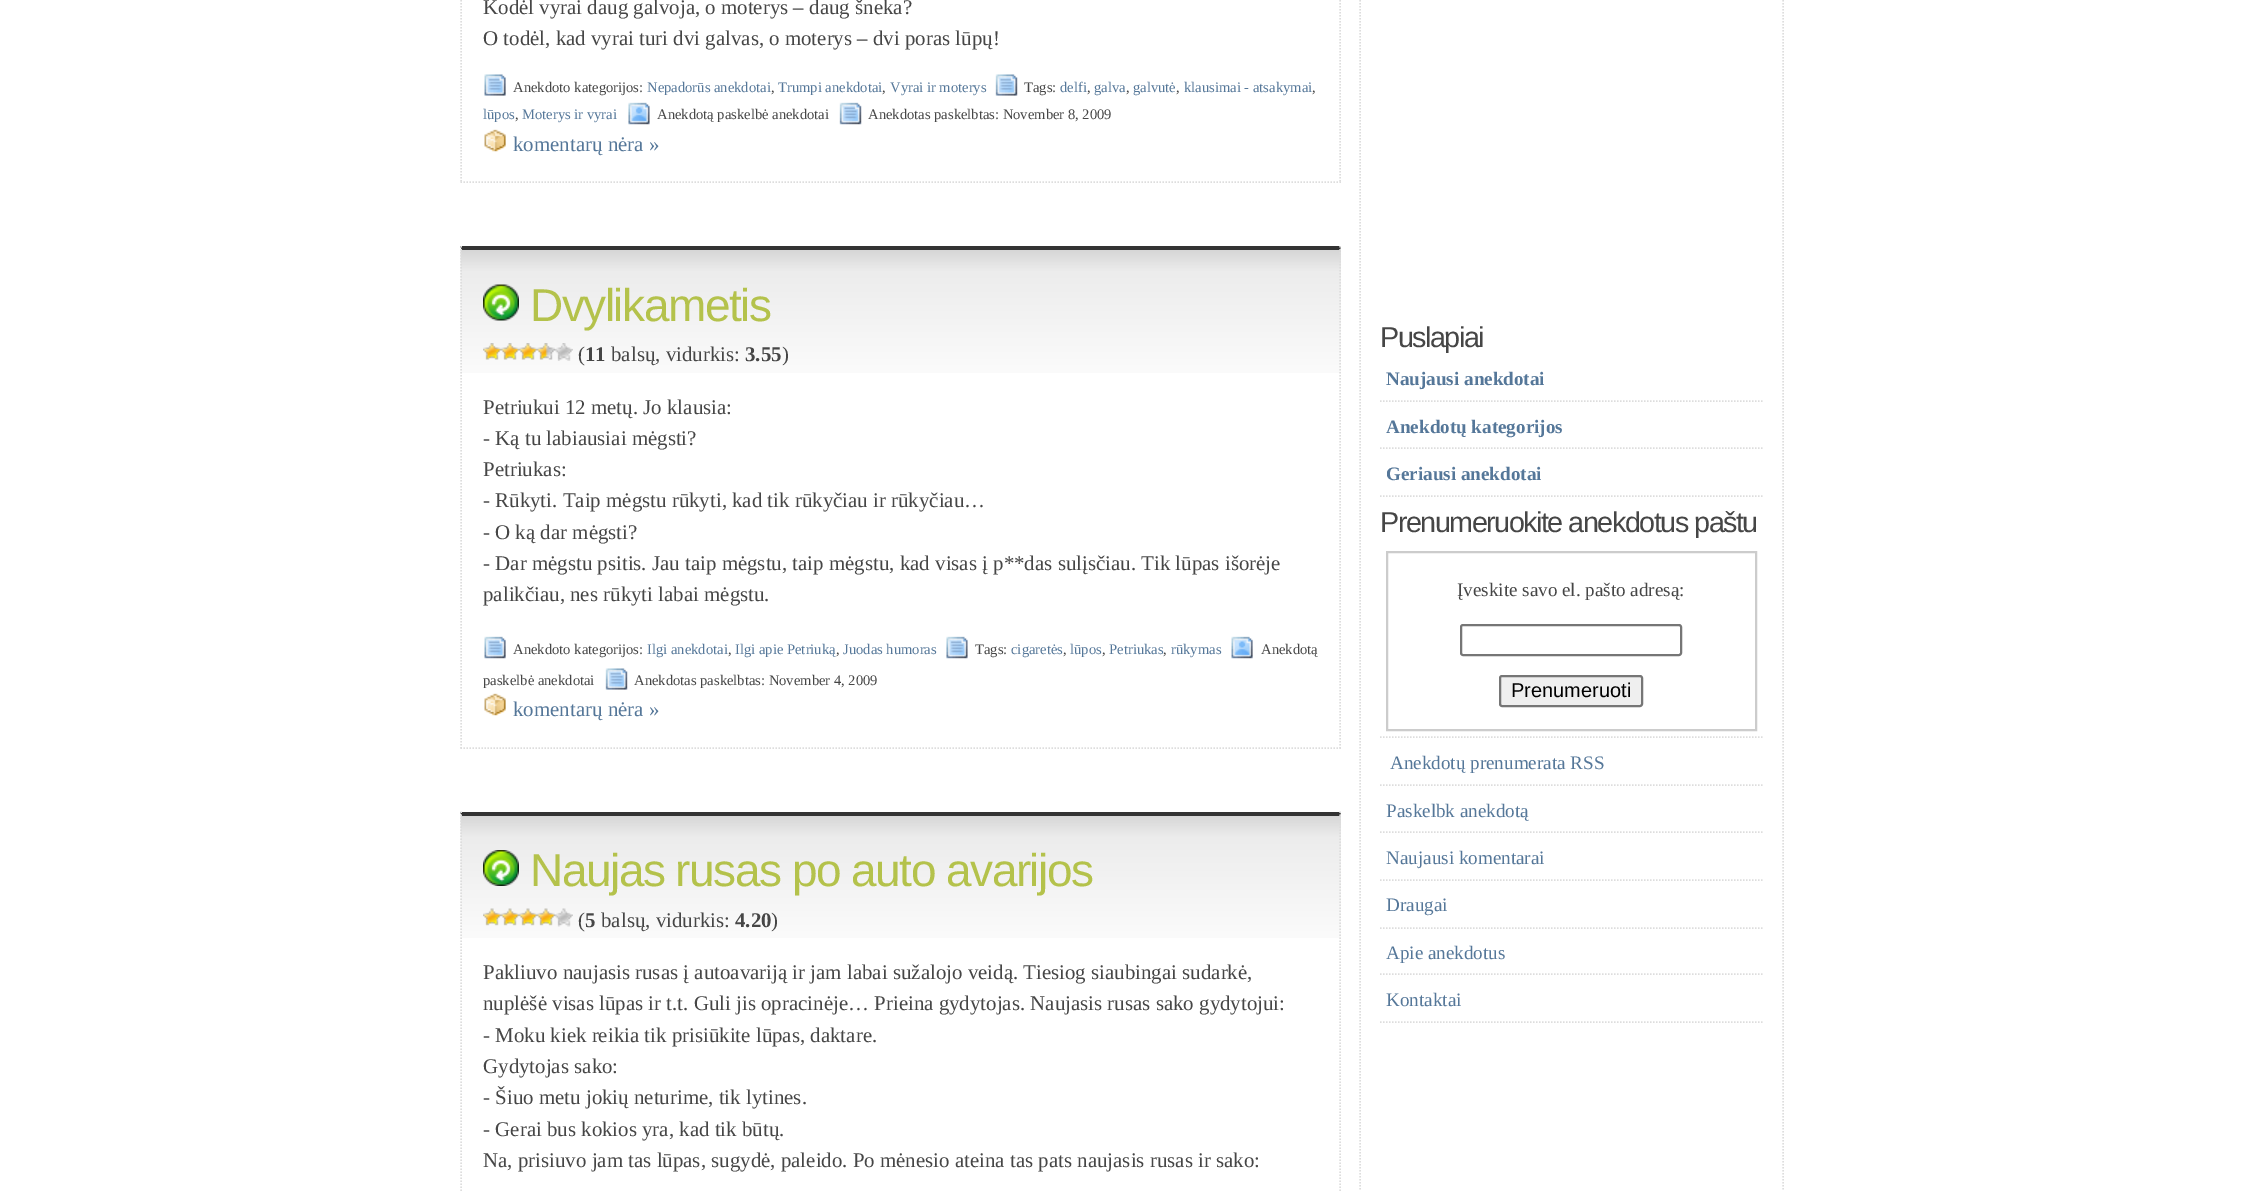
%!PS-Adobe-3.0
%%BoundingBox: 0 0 2243 1191
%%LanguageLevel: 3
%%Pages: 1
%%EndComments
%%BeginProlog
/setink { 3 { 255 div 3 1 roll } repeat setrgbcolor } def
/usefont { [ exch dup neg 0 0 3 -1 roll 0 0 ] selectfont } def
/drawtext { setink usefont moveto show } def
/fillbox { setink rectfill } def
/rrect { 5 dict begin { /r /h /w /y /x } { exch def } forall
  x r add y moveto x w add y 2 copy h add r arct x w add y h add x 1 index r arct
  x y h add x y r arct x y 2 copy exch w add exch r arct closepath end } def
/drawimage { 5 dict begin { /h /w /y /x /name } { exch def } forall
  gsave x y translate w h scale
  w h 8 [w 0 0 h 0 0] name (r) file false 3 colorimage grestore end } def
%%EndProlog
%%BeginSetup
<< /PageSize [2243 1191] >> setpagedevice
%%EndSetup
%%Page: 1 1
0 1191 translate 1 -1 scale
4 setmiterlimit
0 0 2243 1191 255 255 255 fillbox
221 221 221 setink
1.5 setlinewidth
[1.5 1.5] 0 setdash
1340 -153 moveto 1340 183 lineto stroke
460.5 182 moveto 1341 182 lineto stroke
461 -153 moveto 461 183 lineto stroke
(Kodėl vyrai daug galvoja, o moterys – daug šneka?) 483 14 /LiberationSerif-Regular 20.9 70 70 70 drawtext
(O todėl, kad vyrai turi dvi galvas, o moterys – dvi poras lūpų!) 483 45 /LiberationSerif-Regular 20.9 70 70 70 drawtext
(assets/img1.rgb) 484 74 22 22 drawimage
(Anekdoto kategorijos:) 513 92 /LiberationSerif-Regular 14.6 70 70 70 drawtext
(Nepadorūs anekdotai) 647 92 /LiberationSerif-Regular 14.6 85 119 153 drawtext
(,) 771 92 /LiberationSerif-Regular 14.6 70 70 70 drawtext
(Trumpi anekdotai) 778 92 /LiberationSerif-Regular 14.6 85 119 153 drawtext
(,) 882 92 /LiberationSerif-Regular 14.6 70 70 70 drawtext
(Vyrai ir moterys) 890 92 /LiberationSerif-Regular 14.6 85 119 153 drawtext
(assets/img2.rgb) 995 74 23 22 drawimage
(Tags:) 1024 92 /LiberationSerif-Regular 14.6 70 70 70 drawtext
(delfi) 1060 92 /LiberationSerif-Regular 14.6 85 119 153 drawtext
(,) 1087 92 /LiberationSerif-Regular 14.6 70 70 70 drawtext
(galva) 1094 92 /LiberationSerif-Regular 14.6 85 119 153 drawtext
(,) 1126 92 /LiberationSerif-Regular 14.6 70 70 70 drawtext
(galvutė) 1133 92 /LiberationSerif-Regular 14.6 85 119 153 drawtext
(,) 1176 92 /LiberationSerif-Regular 14.6 70 70 70 drawtext
(klausimai - atsakymai) 1184 92 /LiberationSerif-Regular 14.6 85 119 153 drawtext
(,) 1312 92 /LiberationSerif-Regular 14.6 70 70 70 drawtext
(lūpos) 483 119 /LiberationSerif-Regular 14.6 85 119 153 drawtext
(,) 515 119 /LiberationSerif-Regular 14.6 70 70 70 drawtext
(Moterys ir vyrai) 522 119 /LiberationSerif-Regular 14.6 85 119 153 drawtext
(assets/img3.rgb) 628 102 22 23 drawimage
(Anekdotą paskelbė anekdotai) 657 119 /LiberationSerif-Regular 14.6 70 70 70 drawtext
(assets/img4.rgb) 839 102 23 23 drawimage
(Anekdotas paskelbtas: November 8, 2009) 868 119 /LiberationSerif-Regular 14.6 70 70 70 drawtext
(assets/img5.rgb) 484 129 22 23 drawimage
(komentarų nėra ») 513 151 /LiberationSerif-Regular 20.9 85 119 153 drawtext
(assets/img6.rgb) 460 250 881 123 drawimage
51 51 51 setink
460 246 moveto 1341 246 lineto 1340 250 lineto 462 250 lineto closepath fill
221 221 221 setink
1340 246 moveto 1340 748.5 lineto stroke
460.5 748 moveto 1341 748 lineto stroke
461 246 moveto 461 748.5 lineto stroke
(assets/img7.rgb) 483 284 36 37 drawimage
/LiberationSans-Regular 46 usefont
180 194 75 setink
530 321 moveto -1.5 0 (Dvylikametis) ashow
(assets/img8.rgb) 483 343 18 17 drawimage
(assets/img9.rgb) 501 343 18 17 drawimage
(assets/img10.rgb) 519 343 18 17 drawimage
(assets/img11.rgb) 537 343 18 17 drawimage
(assets/img12.rgb) 555 343 18 18 drawimage
(\() 578 361 /LiberationSerif-Regular 20.9 70 70 70 drawtext
(11) 585 361 /LiberationSerif-Bold 20.9 70 70 70 drawtext
(balsų, vidurkis:) 611 361 /LiberationSerif-Regular 20.9 70 70 70 drawtext
(3.55) 745 361 /LiberationSerif-Bold 20.9 70 70 70 drawtext
(\)) 782 361 /LiberationSerif-Regular 20.9 70 70 70 drawtext
(Petriukui 12 metų. Jo klausia:) 483 414 /LiberationSerif-Regular 20.9 70 70 70 drawtext
(- Ką tu labiausiai mėgsti?) 483 445 /LiberationSerif-Regular 20.9 70 70 70 drawtext
(Petriukas:) 483 476 /LiberationSerif-Regular 20.9 70 70 70 drawtext
(- Rūkyti. Taip mėgstu rūkyti, kad tik rūkyčiau ir rūkyčiau…) 483 507 /LiberationSerif-Regular 20.9 70 70 70 drawtext
(- O ką dar mėgsti?) 483 539 /LiberationSerif-Regular 20.9 70 70 70 drawtext
(- Dar mėgstu psitis. Jau taip mėgstu, taip mėgstu, kad visas į p**das sulįsčiau. Tik lūpas išorėje) 483 570 /LiberationSerif-Regular 20.9 70 70 70 drawtext
(palikčiau, nes rūkyti labai mėgstu.) 483 601 /LiberationSerif-Regular 20.9 70 70 70 drawtext
(assets/img13.rgb) 484 636 22 23 drawimage
(Anekdoto kategorijos:) 513 654 /LiberationSerif-Regular 14.6 70 70 70 drawtext
(Ilgi anekdotai) 647 654 /LiberationSerif-Regular 14.6 85 119 153 drawtext
(,) 728 654 /LiberationSerif-Regular 14.6 70 70 70 drawtext
(Ilgi apie Petriuką) 735 654 /LiberationSerif-Regular 14.6 85 119 153 drawtext
(,) 836 654 /LiberationSerif-Regular 14.6 70 70 70 drawtext
(Juodas humoras) 843 654 /LiberationSerif-Regular 14.6 85 119 153 drawtext
(assets/img14.rgb) 946 636 22 23 drawimage
(Tags:) 975 654 /LiberationSerif-Regular 14.6 70 70 70 drawtext
(cigaretės) 1011 654 /LiberationSerif-Regular 14.6 85 119 153 drawtext
(,) 1063 654 /LiberationSerif-Regular 14.6 70 70 70 drawtext
(lūpos) 1070 654 /LiberationSerif-Regular 14.6 85 119 153 drawtext
(,) 1102 654 /LiberationSerif-Regular 14.6 70 70 70 drawtext
(Petriukas) 1109 654 /LiberationSerif-Regular 14.6 85 119 153 drawtext
(,) 1163 654 /LiberationSerif-Regular 14.6 70 70 70 drawtext
(rūkymas) 1171 654 /LiberationSerif-Regular 14.6 85 119 153 drawtext
(assets/img15.rgb) 1231 636 22 23 drawimage
(Anekdotą) 1261 654 /LiberationSerif-Regular 14.6 70 70 70 drawtext
(paskelbė anekdotai) 483 685 /LiberationSerif-Regular 14.6 70 70 70 drawtext
(assets/img16.rgb) 605 668 23 22 drawimage
(Anekdotas paskelbtas: November 4, 2009) 634 685 /LiberationSerif-Regular 14.6 70 70 70 drawtext
(assets/img5.rgb) 484 693 22 23 drawimage
(komentarų nėra ») 513 716 /LiberationSerif-Regular 20.9 85 119 153 drawtext
(assets/img17.rgb) 460 815 881 123 drawimage
51 51 51 setink
460 812 moveto 1341 812 lineto 1340 816 lineto 462 816 lineto closepath fill
221 221 221 setink
1340 811.5 moveto 1340 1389 lineto stroke
461 811.5 moveto 461 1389 lineto stroke
(assets/img18.rgb) 483 850 36 36 drawimage
/LiberationSans-Regular 46 usefont
180 194 75 setink
530 886 moveto -1.5 0 (Naujas rusas po auto avarijos) ashow
(assets/img19.rgb) 483 908 18 18 drawimage
(assets/img20.rgb) 501 908 18 18 drawimage
(assets/img21.rgb) 519 908 18 18 drawimage
(assets/img21.rgb) 537 908 18 18 drawimage
(assets/img22.rgb) 555 908 18 19 drawimage
(\() 578 927 /LiberationSerif-Regular 20.9 70 70 70 drawtext
(5) 585 927 /LiberationSerif-Bold 20.9 70 70 70 drawtext
(balsų, vidurkis:) 601 927 /LiberationSerif-Regular 20.9 70 70 70 drawtext
(4.20) 735 927 /LiberationSerif-Bold 20.9 70 70 70 drawtext
(\)) 771 927 /LiberationSerif-Regular 20.9 70 70 70 drawtext
(Pakliuvo naujasis rusas į autoavariją ir jam labai sužalojo veidą. Tiesiog siaubingai sudarkė,) 483 979 /LiberationSerif-Regular 20.9 70 70 70 drawtext
(nuplėšė visas lūpas ir t.t. Guli jis opracinėje… Prieina gydytojas. Naujasis rusas sako gydytojui:) 483 1010 /LiberationSerif-Regular 20.9 70 70 70 drawtext
(- Moku kiek reikia tik prisiūkite lūpas, daktare.) 483 1042 /LiberationSerif-Regular 20.9 70 70 70 drawtext
(Gydytojas sako:) 483 1073 /LiberationSerif-Regular 20.9 70 70 70 drawtext
(- Šiuo metu jokių neturime, tik lytines.) 483 1104 /LiberationSerif-Regular 20.9 70 70 70 drawtext
(- Gerai bus kokios yra, kad tik būtų.) 483 1136 /LiberationSerif-Regular 20.9 70 70 70 drawtext
(Na, prisiuvo jam tas lūpas, sugydė, paleido. Po mėnesio ateina tas pats naujasis rusas ir sako:) 483 1167 /LiberationSerif-Regular 20.9 70 70 70 drawtext
221 221 221 setink
1783 -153 moveto 1783 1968 lineto stroke
1360 -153 moveto 1360 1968 lineto stroke
/LiberationSans-Regular 28.75 usefont
70 70 70 setink
1380 347 moveto -1.5 0 (Puslapiai) ashow
221 221 221 setink
1380 401 moveto 1762.5 401 lineto stroke
(Naujausi anekdotai) 1386 385 /LiberationSerif-Bold 19.1 85 119 153 drawtext
221 221 221 setink
1380 448 moveto 1762.5 448 lineto stroke
(Anekdotų kategorijos) 1386 433 /LiberationSerif-Bold 19.1 85 119 153 drawtext
221 221 221 setink
1380 496 moveto 1762.5 496 lineto stroke
(Geriausi anekdotai) 1386 480 /LiberationSerif-Bold 19.1 85 119 153 drawtext
/LiberationSans-Regular 28.75 usefont
70 70 70 setink
1380 532 moveto -1.5 0 (Prenumeruokite anekdotus paštu) ashow
221 221 221 setink
1380 737 moveto 1762.5 737 lineto stroke
204 204 204 setink
2 setlinewidth
[] 0 setdash
1387 552 369 178 rectstroke
(Įveskite savo el. pašto adresą:) 1457 596 /LiberationSerif-Regular 19.1 70 70 70 drawtext
118 118 118 setink
1461 625 220 30 2 rrect stroke
239 239 239 setink
1500 676 142 30 2 rrect gsave fill grestore
118 118 118 setink
stroke
(Prenumeruoti) 1511 697 /LiberationSans-Regular 20 0 0 0 drawtext
221 221 221 setink
1.5 setlinewidth
[1.5 1.5] 0 setdash
1380 785 moveto 1762.5 785 lineto stroke
(Anekdotų prenumerata RSS) 1390 769 /LiberationSerif-Regular 19.1 85 119 153 drawtext
221 221 221 setink
1380 832 moveto 1762.5 832 lineto stroke
(Paskelbk anekdotą) 1386 817 /LiberationSerif-Regular 19.1 85 119 153 drawtext
221 221 221 setink
1380 880 moveto 1762.5 880 lineto stroke
(Naujausi komentarai) 1386 864 /LiberationSerif-Regular 19.1 85 119 153 drawtext
221 221 221 setink
1380 928 moveto 1762.5 928 lineto stroke
(Draugai) 1386 911 /LiberationSerif-Regular 19.1 85 119 153 drawtext
221 221 221 setink
1380 974 moveto 1762.5 974 lineto stroke
(Apie anekdotus) 1386 959 /LiberationSerif-Regular 19.1 85 119 153 drawtext
221 221 221 setink
1380 1022 moveto 1762.5 1022 lineto stroke
(Kontaktai) 1386 1006 /LiberationSerif-Regular 19.1 85 119 153 drawtext
showpage
%%EOF
